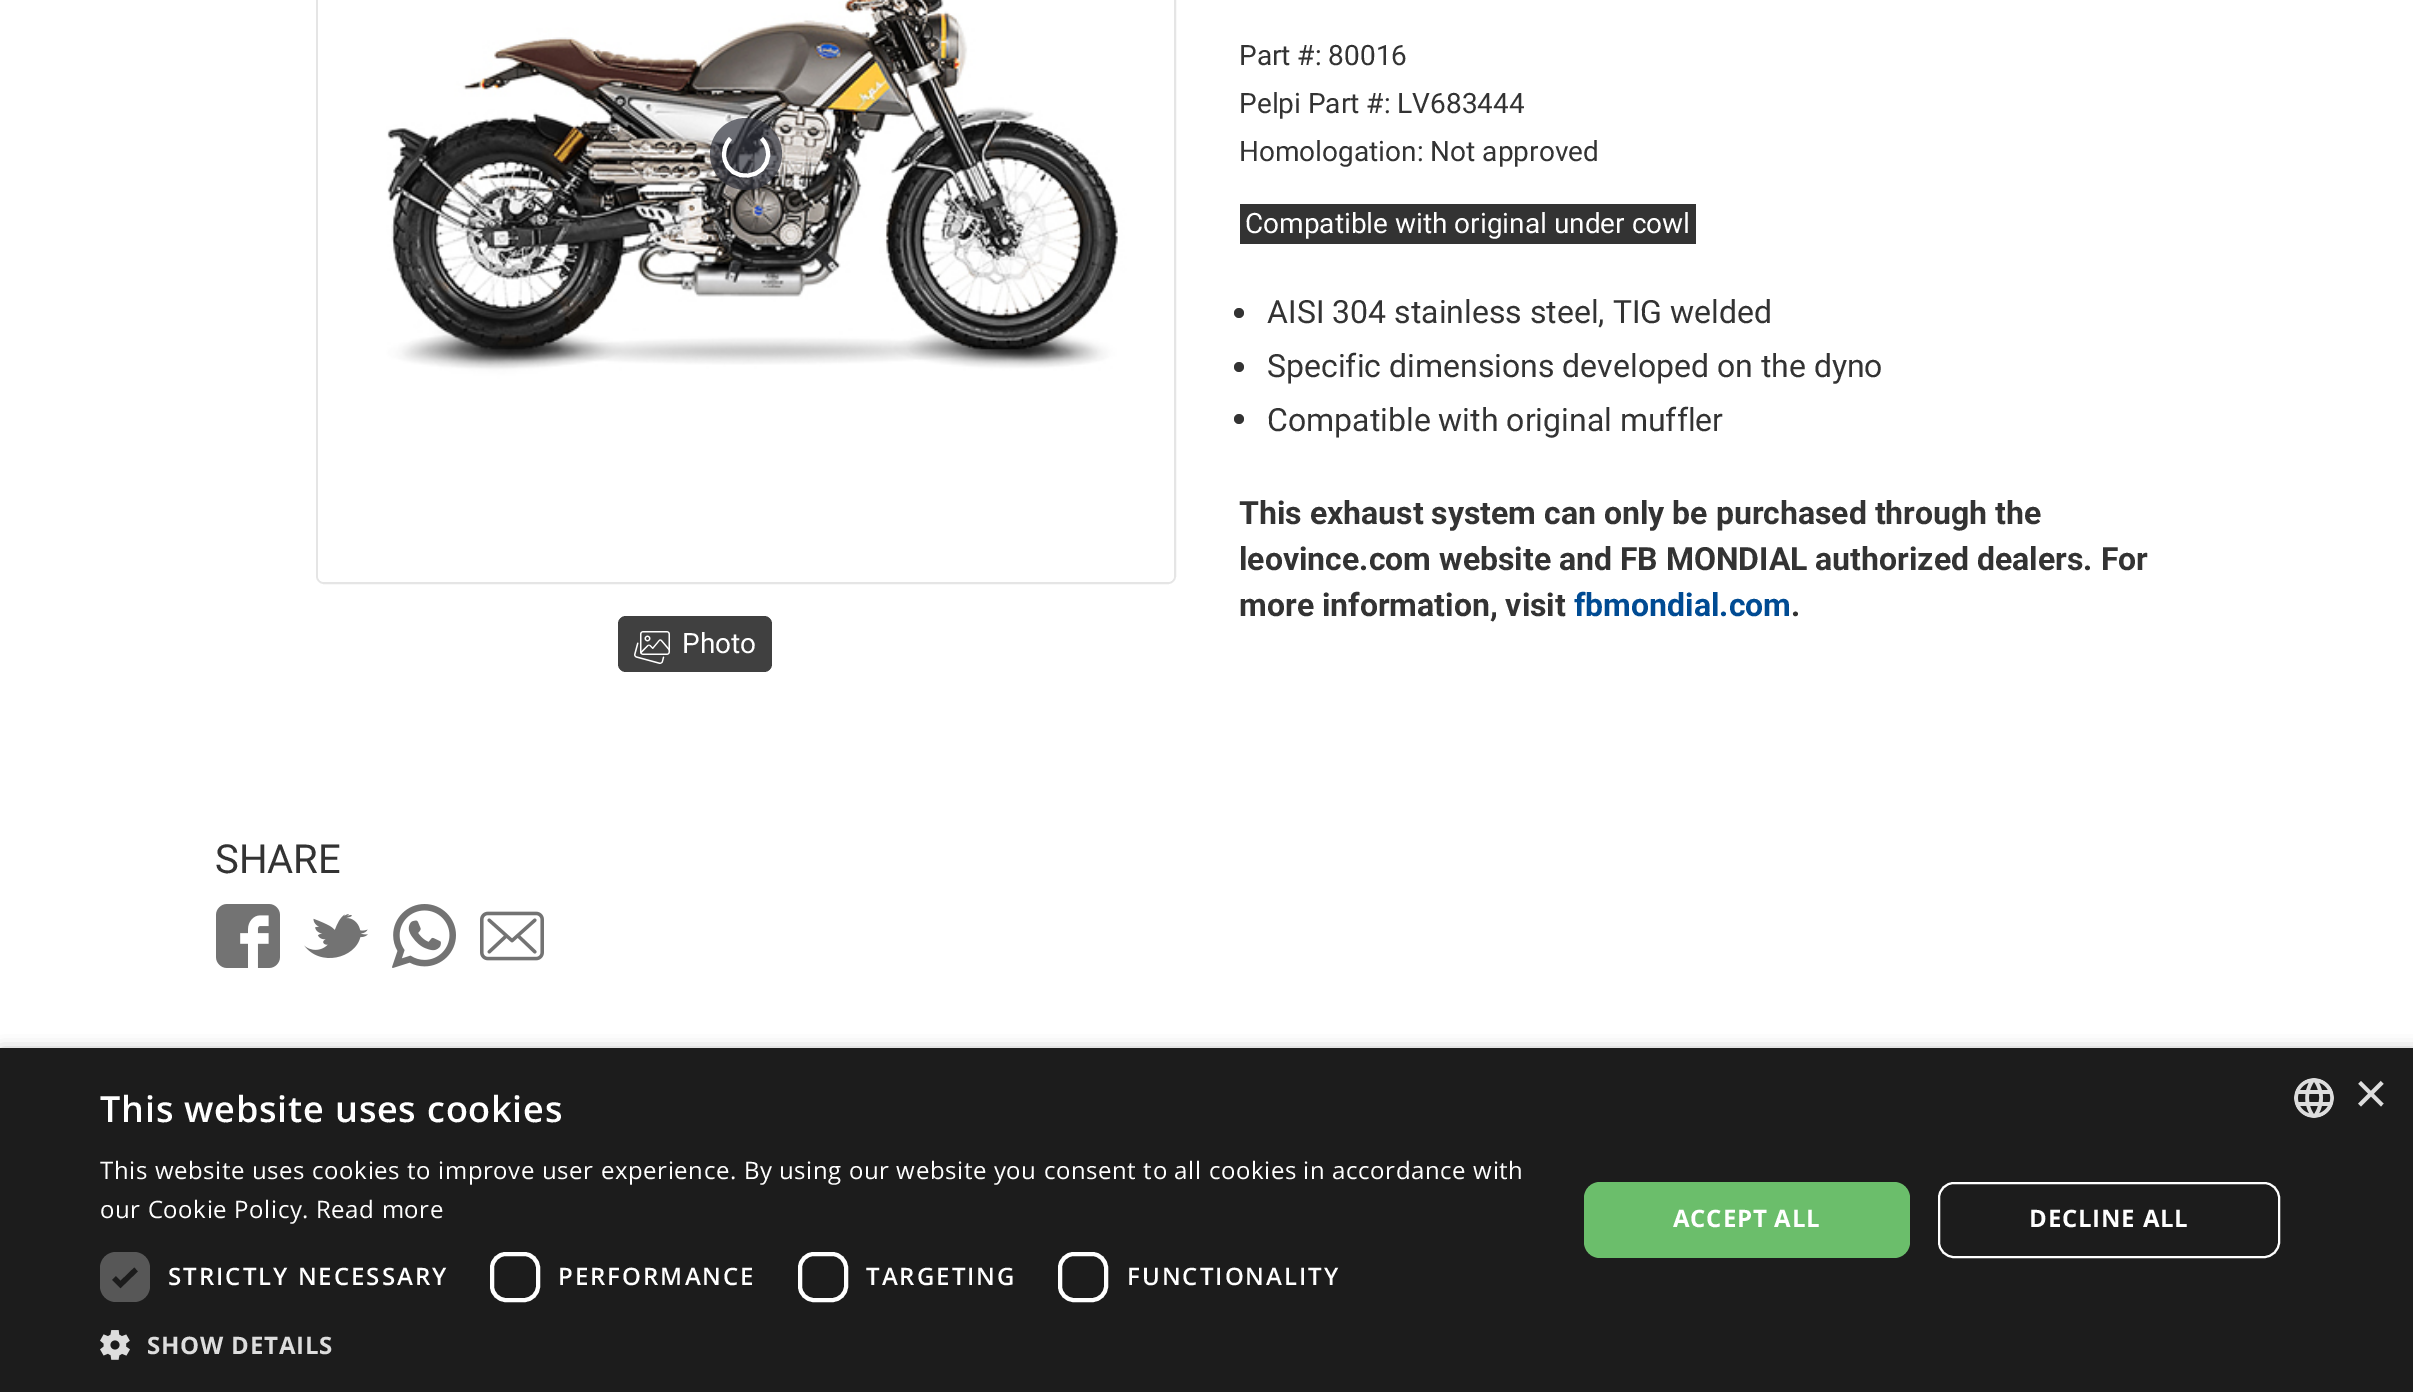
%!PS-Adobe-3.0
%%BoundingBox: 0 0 2413 1392
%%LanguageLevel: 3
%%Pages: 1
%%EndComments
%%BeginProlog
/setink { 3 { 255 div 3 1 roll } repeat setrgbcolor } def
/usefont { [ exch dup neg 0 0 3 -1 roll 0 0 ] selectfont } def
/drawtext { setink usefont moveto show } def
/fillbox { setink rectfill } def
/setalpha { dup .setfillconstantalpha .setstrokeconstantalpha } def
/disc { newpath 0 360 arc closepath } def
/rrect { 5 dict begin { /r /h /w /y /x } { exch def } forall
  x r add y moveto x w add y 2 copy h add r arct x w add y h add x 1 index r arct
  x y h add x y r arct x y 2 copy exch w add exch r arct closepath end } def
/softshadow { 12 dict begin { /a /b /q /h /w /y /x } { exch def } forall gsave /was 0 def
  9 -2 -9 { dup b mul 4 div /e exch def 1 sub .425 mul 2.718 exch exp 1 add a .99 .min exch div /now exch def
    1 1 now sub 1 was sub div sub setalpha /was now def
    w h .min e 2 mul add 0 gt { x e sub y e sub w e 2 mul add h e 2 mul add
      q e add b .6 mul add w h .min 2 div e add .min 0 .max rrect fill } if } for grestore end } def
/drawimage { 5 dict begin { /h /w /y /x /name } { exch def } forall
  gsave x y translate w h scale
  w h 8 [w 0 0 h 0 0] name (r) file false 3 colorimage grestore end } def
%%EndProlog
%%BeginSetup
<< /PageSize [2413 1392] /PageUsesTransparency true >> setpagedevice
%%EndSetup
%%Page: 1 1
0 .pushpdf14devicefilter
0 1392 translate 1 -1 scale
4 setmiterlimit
0 0 2413 1392 255 255 255 fillbox
(Part #: 80016) 1239 65 /Roboto-Regular 28 51 51 51 drawtext
(Pelpi Part #: LV683444) 1239 113 /Roboto-Regular 28 51 51 51 drawtext
(Homologation: Not approved) 1239 161 /Roboto-Regular 28 51 51 51 drawtext
1240 204 456 40 51 51 51 fillbox
(Compatible with original under cowl) 1245 233 /Roboto-Regular 28 255 255 255 drawtext
51 51 51 setink
1239 313 5 disc fill
(AISI 304 stainless steel, TIG welded) 1267 323 /Roboto-Regular 32 51 51 51 drawtext
1239 367 5 disc fill
(Specific dimensions developed on the dyno) 1267 377 /Roboto-Regular 32 51 51 51 drawtext
1239 419 5 disc fill
(Compatible with original muffler) 1267 431 /Roboto-Regular 32 51 51 51 drawtext
(This exhaust system can only be purchased through the) 1239 524 /Roboto-Bold 32 51 51 51 drawtext
(leovince.com website and FB MONDIAL authorized dealers. For) 1239 570 /Roboto-Bold 32 51 51 51 drawtext
(more information, visit) 1239 616 /Roboto-Bold 32 51 51 51 drawtext
(fbmondial.com) 1574 616 /Roboto-Bold 32 0 75 147 drawtext
(.) 1791 616 /Roboto-Bold 32 51 51 51 drawtext
229 229 229 setink
2 setlinewidth
317 -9 858 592 7 rrect stroke
(assets/img1.rgb) 318 0 856 582 drawimage
0.7 setalpha
49 51 61 setink
746 154 36 disc fill
1 setalpha
255 255 255 setink
4 setlinewidth
761.5 138.5 moveto 765.5 142.5 768 148 768 154 curveto 768 180 729.5 184 724.5 158.5 curveto 723 151 725.5 143.5 730.5 138.5 curveto stroke
64 64 64 setink
618 616 154 56 8 rrect fill
(assets/img2.rgb) 634 631 36 33 drawimage
(Photo) 682 653 /Roboto-Regular 28 255 255 255 drawtext
(SHARE) 215 873 /Roboto-Regular 40 51 51 51 drawtext
(assets/img3.rgb) 216 904 64 64 drawimage
(assets/img4.rgb) 304 914 64 44 drawimage
(assets/img5.rgb) 392 904 64 64 drawimage
(assets/img6.rgb) 480 911 64 50 drawimage
0 0 0 setink
2 1052 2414 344 0 8 0.35 softshadow
0 1048 2413 344 28 28 28 fillbox
/OpenSans-SemiBold 36 usefont
255 255 255 setink
100 1122 moveto 0.8 0 (This website uses cookies) ashow
/OpenSans-Regular 24 usefont
100 1179 moveto 0.6 0 (This website uses cookies to improve user experience. By using our website you consent to all cookies in accordance with) ashow
100 1218 moveto 0.6 0 (our Cookie Policy. Read more) ashow
87 87 87 setink
100 1252 50 50 16 rrect fill
28 28 28 setink
5.2 setlinewidth
114 1278 moveto 120.5 1284.5 lineto 136 1269.5 lineto stroke
/OpenSans-SemiBold 24 usefont
255 255 255 setink
168 1285 moveto 2 0 (STRICTLY NECESSARY) ashow
4 setlinewidth
492 1254 46 46 14 rrect stroke
558 1285 moveto 2 0 (PERFORMANCE) ashow
800 1254 46 46 14 rrect stroke
866 1285 moveto 2 0 (TARGETING) ashow
1060 1254 46 46 14 rrect stroke
1127 1285 moveto 2 0 (FUNCTIONALITY) ashow
(assets/img7.rgb) 100 1330 30 30 drawimage
/OpenSans-Bold 24 usefont
221 221 221 setink
147 1354 moveto 0.8 0 (SHOW DETAILS) ashow
107 190 107 setink
1584 1182 326 76 16 rrect fill
255 255 255 setink
1673 1227 moveto 0.8 0 (ACCEPT ALL) ashow
2 setlinewidth
1939 1183 340 74 15 rrect stroke
2029 1227 moveto 0.8 0 (DECLINE ALL) ashow
(assets/img8.rgb) 2294 1078 40 40 drawimage
(×) 2354 1113 /LiberationSans-Regular 58 221 221 221 drawtext
.poppdf14devicefilter showpage
%%EOF
